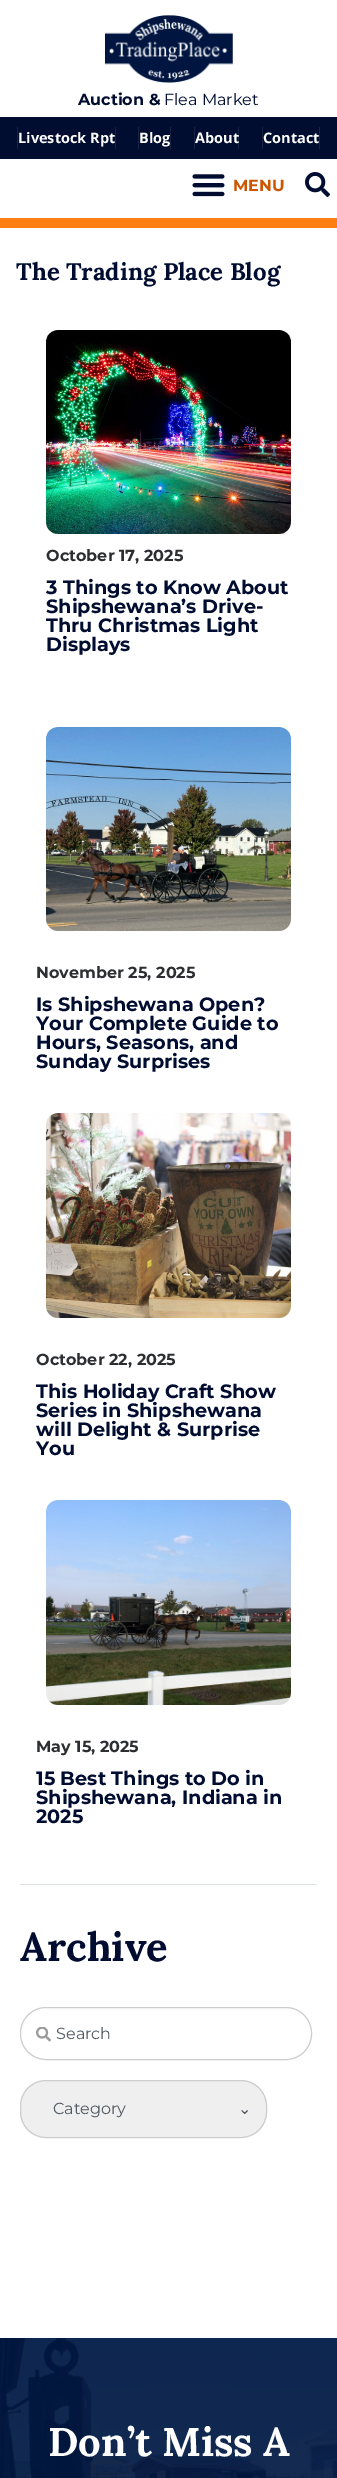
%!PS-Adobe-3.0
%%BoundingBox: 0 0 337 2478
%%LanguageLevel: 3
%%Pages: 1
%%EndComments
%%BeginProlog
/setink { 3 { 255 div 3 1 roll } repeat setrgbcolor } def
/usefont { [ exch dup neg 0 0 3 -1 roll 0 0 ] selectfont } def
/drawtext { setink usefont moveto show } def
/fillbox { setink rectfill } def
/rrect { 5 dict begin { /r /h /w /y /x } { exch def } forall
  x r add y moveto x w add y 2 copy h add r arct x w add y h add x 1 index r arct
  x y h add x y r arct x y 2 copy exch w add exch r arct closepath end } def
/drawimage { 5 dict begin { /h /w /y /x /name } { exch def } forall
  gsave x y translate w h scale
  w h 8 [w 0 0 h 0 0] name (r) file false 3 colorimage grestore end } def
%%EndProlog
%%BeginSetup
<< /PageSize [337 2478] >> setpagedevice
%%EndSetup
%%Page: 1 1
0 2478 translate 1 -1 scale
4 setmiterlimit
0 0 337 2478 255 255 255 fillbox
(assets/img1.rgb) 105 15 128 68 drawimage
(Auction &) 78 105 /Montserrat-Bold 16 0 13 48 drawtext
(Flea Market) 164 105 /Montserrat-Regular 16 0 13 48 drawtext
0 117 337 42 0 13 48 fillbox
115 127 1 22 23 35 67 fillbox
17 127 1 22 23 35 67 fillbox
(Livestock Rpt) 18 143 /OpenSans-Bold 14.5 255 255 255 drawtext
170 127 1 22 23 35 67 fillbox
138 127 1 22 23 35 67 fillbox
(Blog) 139 143 /OpenSans-Bold 14.5 255 255 255 drawtext
238 127 1 22 23 35 67 fillbox
194 127 1 22 23 35 67 fillbox
(About) 195 143 /OpenSans-Bold 14.5 255 255 255 drawtext
319 127 1 22 23 35 67 fillbox
262 127 1 22 23 35 67 fillbox
(Contact) 263 143 /OpenSans-Bold 14.5 255 255 255 drawtext
(assets/img2.rgb) 192 174 33 23 drawimage
(MENU) 233 191 /Montserrat-Bold 16 204 86 2 drawtext
(assets/img3.rgb) 305 172 25 25 drawimage
0 218 337 10 253 126 20 fillbox
(The Trading Place Blog) 16 280 /Lora-Bold 24 0 13 48 drawtext
(assets/img4.rgb) 46 330 245 204 drawimage
(October 17, 2025) 46 561 /Montserrat-Bold 16 44 46 50 drawtext
(3 Things to Know About) 46 594 /Montserrat-Bold 19.25 0 13 48 drawtext
(Shipshewana’s Drive-) 46 613 /Montserrat-Bold 19.25 0 13 48 drawtext
(Thru Christmas Light) 46 632 /Montserrat-Bold 19.25 0 13 48 drawtext
(Displays) 46 651 /Montserrat-Bold 19.25 0 13 48 drawtext
(assets/img5.rgb) 46 727 245 204 drawimage
(November 25, 2025) 36 978 /Montserrat-Bold 16 44 46 50 drawtext
(Is Shipshewana Open?) 36 1011 /Montserrat-Bold 19.25 0 13 48 drawtext
(Your Complete Guide to) 36 1030 /Montserrat-Bold 19.25 0 13 48 drawtext
(Hours, Seasons, and) 36 1049 /Montserrat-Bold 19.25 0 13 48 drawtext
(Sunday Surprises) 36 1068 /Montserrat-Bold 19.25 0 13 48 drawtext
(assets/img6.rgb) 46 1113 245 205 drawimage
(October 22, 2025) 36 1365 /Montserrat-Bold 16 44 46 50 drawtext
(This Holiday Craft Show) 36 1398 /Montserrat-Bold 19.25 0 13 48 drawtext
(Series in Shipshewana) 36 1417 /Montserrat-Bold 19.25 0 13 48 drawtext
(will Delight & Surprise) 36 1436 /Montserrat-Bold 19.25 0 13 48 drawtext
(You) 36 1455 /Montserrat-Bold 19.25 0 13 48 drawtext
(assets/img7.rgb) 46 1500 245 205 drawimage
(May 15, 2025) 36 1752 /Montserrat-Bold 16 44 46 50 drawtext
(15 Best Things to Do in) 36 1785 /Montserrat-Bold 19.25 0 13 48 drawtext
(Shipshewana, Indiana in) 36 1804 /Montserrat-Bold 19.25 0 13 48 drawtext
(2025) 36 1823 /Montserrat-Bold 19.25 0 13 48 drawtext
20 1884 297 1 221 227 229 fillbox
(Archive) 20 1961 /Lora-Bold 40 0 13 48 drawtext
205 205 205 setink
20.5 2007.5 291 52 25.5 rrect stroke
(assets/img8.rgb) 36 2027 15 15 drawimage
(Search) 56 2039 /Montserrat-Regular 16 81 89 98 drawtext
239 239 239 setink
20.5 2080.5 246 57 25.5 rrect gsave fill grestore
205 205 205 setink
stroke
(Category) 53 2114 /Montserrat-Regular 16 81 89 98 drawtext
(⌄) 238 2114 /DejaVuSans-Regular 16 81 89 98 drawtext
(assets/img9.rgb) 0 2338 337 140 drawimage
(Don’t Miss A) 48 2456 /Lora-Bold 40 255 255 255 drawtext
showpage
%%EOF
